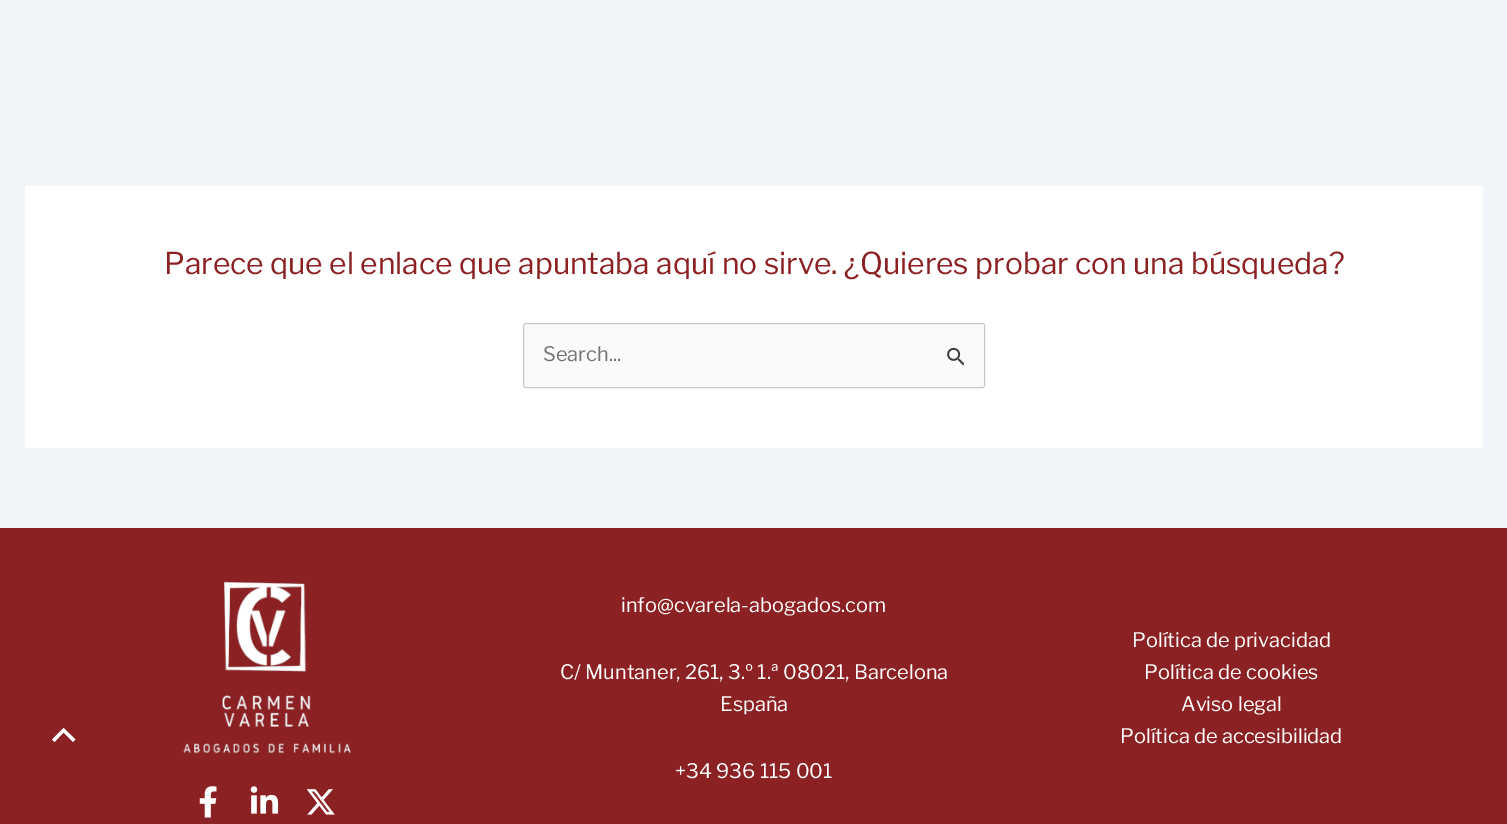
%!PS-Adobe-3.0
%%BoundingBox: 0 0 1507 824
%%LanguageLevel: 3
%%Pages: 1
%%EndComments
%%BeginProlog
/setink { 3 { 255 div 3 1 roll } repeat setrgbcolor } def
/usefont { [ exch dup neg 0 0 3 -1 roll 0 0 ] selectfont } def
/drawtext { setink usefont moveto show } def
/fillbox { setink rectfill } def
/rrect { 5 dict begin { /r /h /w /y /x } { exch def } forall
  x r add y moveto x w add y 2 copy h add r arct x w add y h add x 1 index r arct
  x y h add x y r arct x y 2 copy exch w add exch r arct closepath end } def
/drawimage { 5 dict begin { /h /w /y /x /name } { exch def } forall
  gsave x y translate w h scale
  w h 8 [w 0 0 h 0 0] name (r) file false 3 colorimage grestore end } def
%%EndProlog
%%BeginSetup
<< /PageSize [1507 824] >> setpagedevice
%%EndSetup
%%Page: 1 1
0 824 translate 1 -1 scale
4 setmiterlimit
0 0 1507 824 241 245 249 fillbox
0 528 1507 296 140 33 35 fillbox
255 255 255 setink
75.5 739.5 moveto 63.5 728 lineto 52 739.5 lineto 54.5 742 lineto 63.5 732.5 lineto 73 742 lineto closepath fill
25 186 1458 262 255 255 255 fillbox
(Parece que el enlace que apuntaba aquí no sirve. ¿Quieres probar con una búsqueda?) 164 274 /LibreFranklin-Regular 30 140 33 35 drawtext
250 250 250 setink
523.5 323.5 461 64 2 rrect gsave fill grestore
198 203 210 setink
stroke
(Search...) 543 361 /LibreFranklin-Regular 20 117 117 117 drawtext
(assets/img1.rgb) 947 347 17 19 drawimage
(assets/img2.rgb) 183 581 168 173 drawimage
(assets/img3.rgb) 199 786 18 32 drawimage
(assets/img4.rgb) 250 786 29 28 drawimage
(assets/img5.rgb) 306 789 29 26 drawimage
(info@cvarela-abogados.com) 621 612 /LibreFranklin-Regular 20 255 255 255 drawtext
(C/ Muntaner, 261, 3.º 1.ª 08021, Barcelona) 560 679 /LibreFranklin-Regular 20 255 255 255 drawtext
(España) 720 711 /LibreFranklin-Regular 20 255 255 255 drawtext
(+34 936 115 001) 675 778 /LibreFranklin-Regular 20 255 255 255 drawtext
(Política de privacidad) 1132 647 /LibreFranklin-Regular 20 255 255 255 drawtext
(Política de cookies) 1144 679 /LibreFranklin-Regular 20 255 255 255 drawtext
(Aviso legal) 1181 711 /LibreFranklin-Regular 20 255 255 255 drawtext
(Política de accesibilidad) 1120 743 /LibreFranklin-Regular 20 255 255 255 drawtext
showpage
%%EOF
